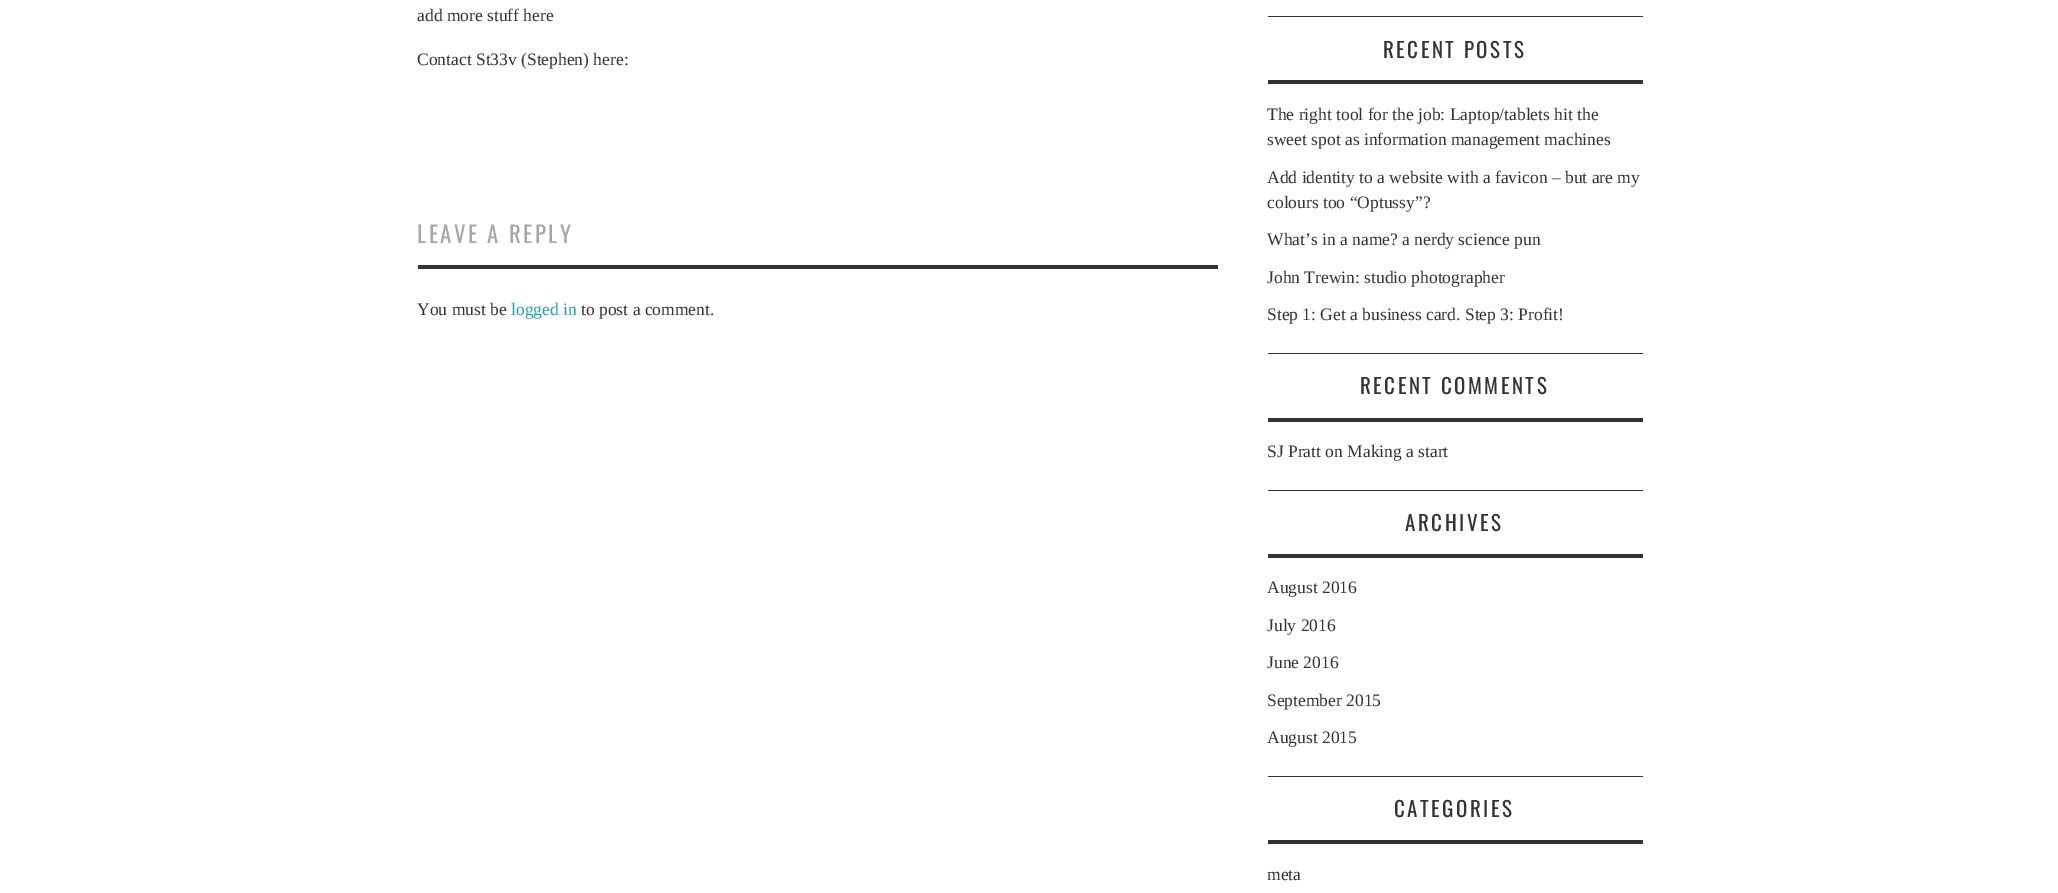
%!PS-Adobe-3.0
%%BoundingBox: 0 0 2058 893
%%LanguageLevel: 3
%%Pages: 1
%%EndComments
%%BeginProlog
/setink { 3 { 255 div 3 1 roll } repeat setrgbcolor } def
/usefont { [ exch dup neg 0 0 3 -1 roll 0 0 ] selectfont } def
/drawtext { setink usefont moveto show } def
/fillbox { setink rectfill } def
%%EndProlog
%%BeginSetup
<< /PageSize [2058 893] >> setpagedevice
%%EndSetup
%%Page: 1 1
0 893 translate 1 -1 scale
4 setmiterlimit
0 0 2058 893 255 255 255 fillbox
(add more stuff here) 417 21 /LiberationSerif-Regular 17.5 51 51 51 drawtext
(Contact St33v \(Stephen\) here:) 417 65 /LiberationSerif-Regular 17.5 51 51 51 drawtext
418 265 800 4 51 51 51 fillbox
/Oswald-Regular 22.75 usefont
166 166 166 setink
417 243 moveto 2.5 0 (LEAVE A REPLY) ashow
(You must be) 417 315 /LiberationSerif-Regular 17.5 51 51 51 drawtext
(logged in) 511 315 /LiberationSerif-Regular 17.5 31 160 174 drawtext
(to post a comment.) 581 315 /LiberationSerif-Regular 17.5 51 51 51 drawtext
1268 16 375 1 51 51 51 fillbox
1268 353 375 1 51 51 51 fillbox
1268 80 375 4 51 51 51 fillbox
/Oswald-Regular 21 usefont
1383 58 moveto 2.5 0 (RECENT POSTS) ashow
(The right tool for the job: Laptop/tablets hit the) 1267 120 /LiberationSerif-Regular 17.5 51 51 51 drawtext
(sweet spot as information management machines) 1267 145 /LiberationSerif-Regular 17.5 51 51 51 drawtext
(Add identity to a website with a favicon – but are my) 1267 183 /LiberationSerif-Regular 17.5 51 51 51 drawtext
(colours too “Optussy”?) 1267 208 /LiberationSerif-Regular 17.5 51 51 51 drawtext
(What’s in a name? a nerdy science pun) 1267 245 /LiberationSerif-Regular 17.5 51 51 51 drawtext
(John Trewin: studio photographer) 1267 283 /LiberationSerif-Regular 17.5 51 51 51 drawtext
(Step 1: Get a business card. Step 3: Profit!) 1267 320 /LiberationSerif-Regular 17.5 51 51 51 drawtext
1268 490 375 1 51 51 51 fillbox
1268 418 375 4 51 51 51 fillbox
/Oswald-Regular 21 usefont
1360 394 moveto 2.5 0 (RECENT COMMENTS) ashow
(SJ Pratt on Making a start) 1267 457 /LiberationSerif-Regular 17.5 51 51 51 drawtext
1268 776 375 1 51 51 51 fillbox
1268 554 375 4 51 51 51 fillbox
/Oswald-Regular 21 usefont
1405 531 moveto 2.5 0 (ARCHIVES) ashow
(August 2016) 1267 593 /LiberationSerif-Regular 17.5 51 51 51 drawtext
(July 2016) 1267 631 /LiberationSerif-Regular 17.5 51 51 51 drawtext
(June 2016) 1267 668 /LiberationSerif-Regular 17.5 51 51 51 drawtext
(September 2015) 1267 706 /LiberationSerif-Regular 17.5 51 51 51 drawtext
(August 2015) 1267 743 /LiberationSerif-Regular 17.5 51 51 51 drawtext
1268 840 375 4 51 51 51 fillbox
/Oswald-Regular 21 usefont
1394 817 moveto 2.5 0 (CATEGORIES) ashow
(meta) 1267 880 /LiberationSerif-Regular 17.5 51 51 51 drawtext
showpage
%%EOF
